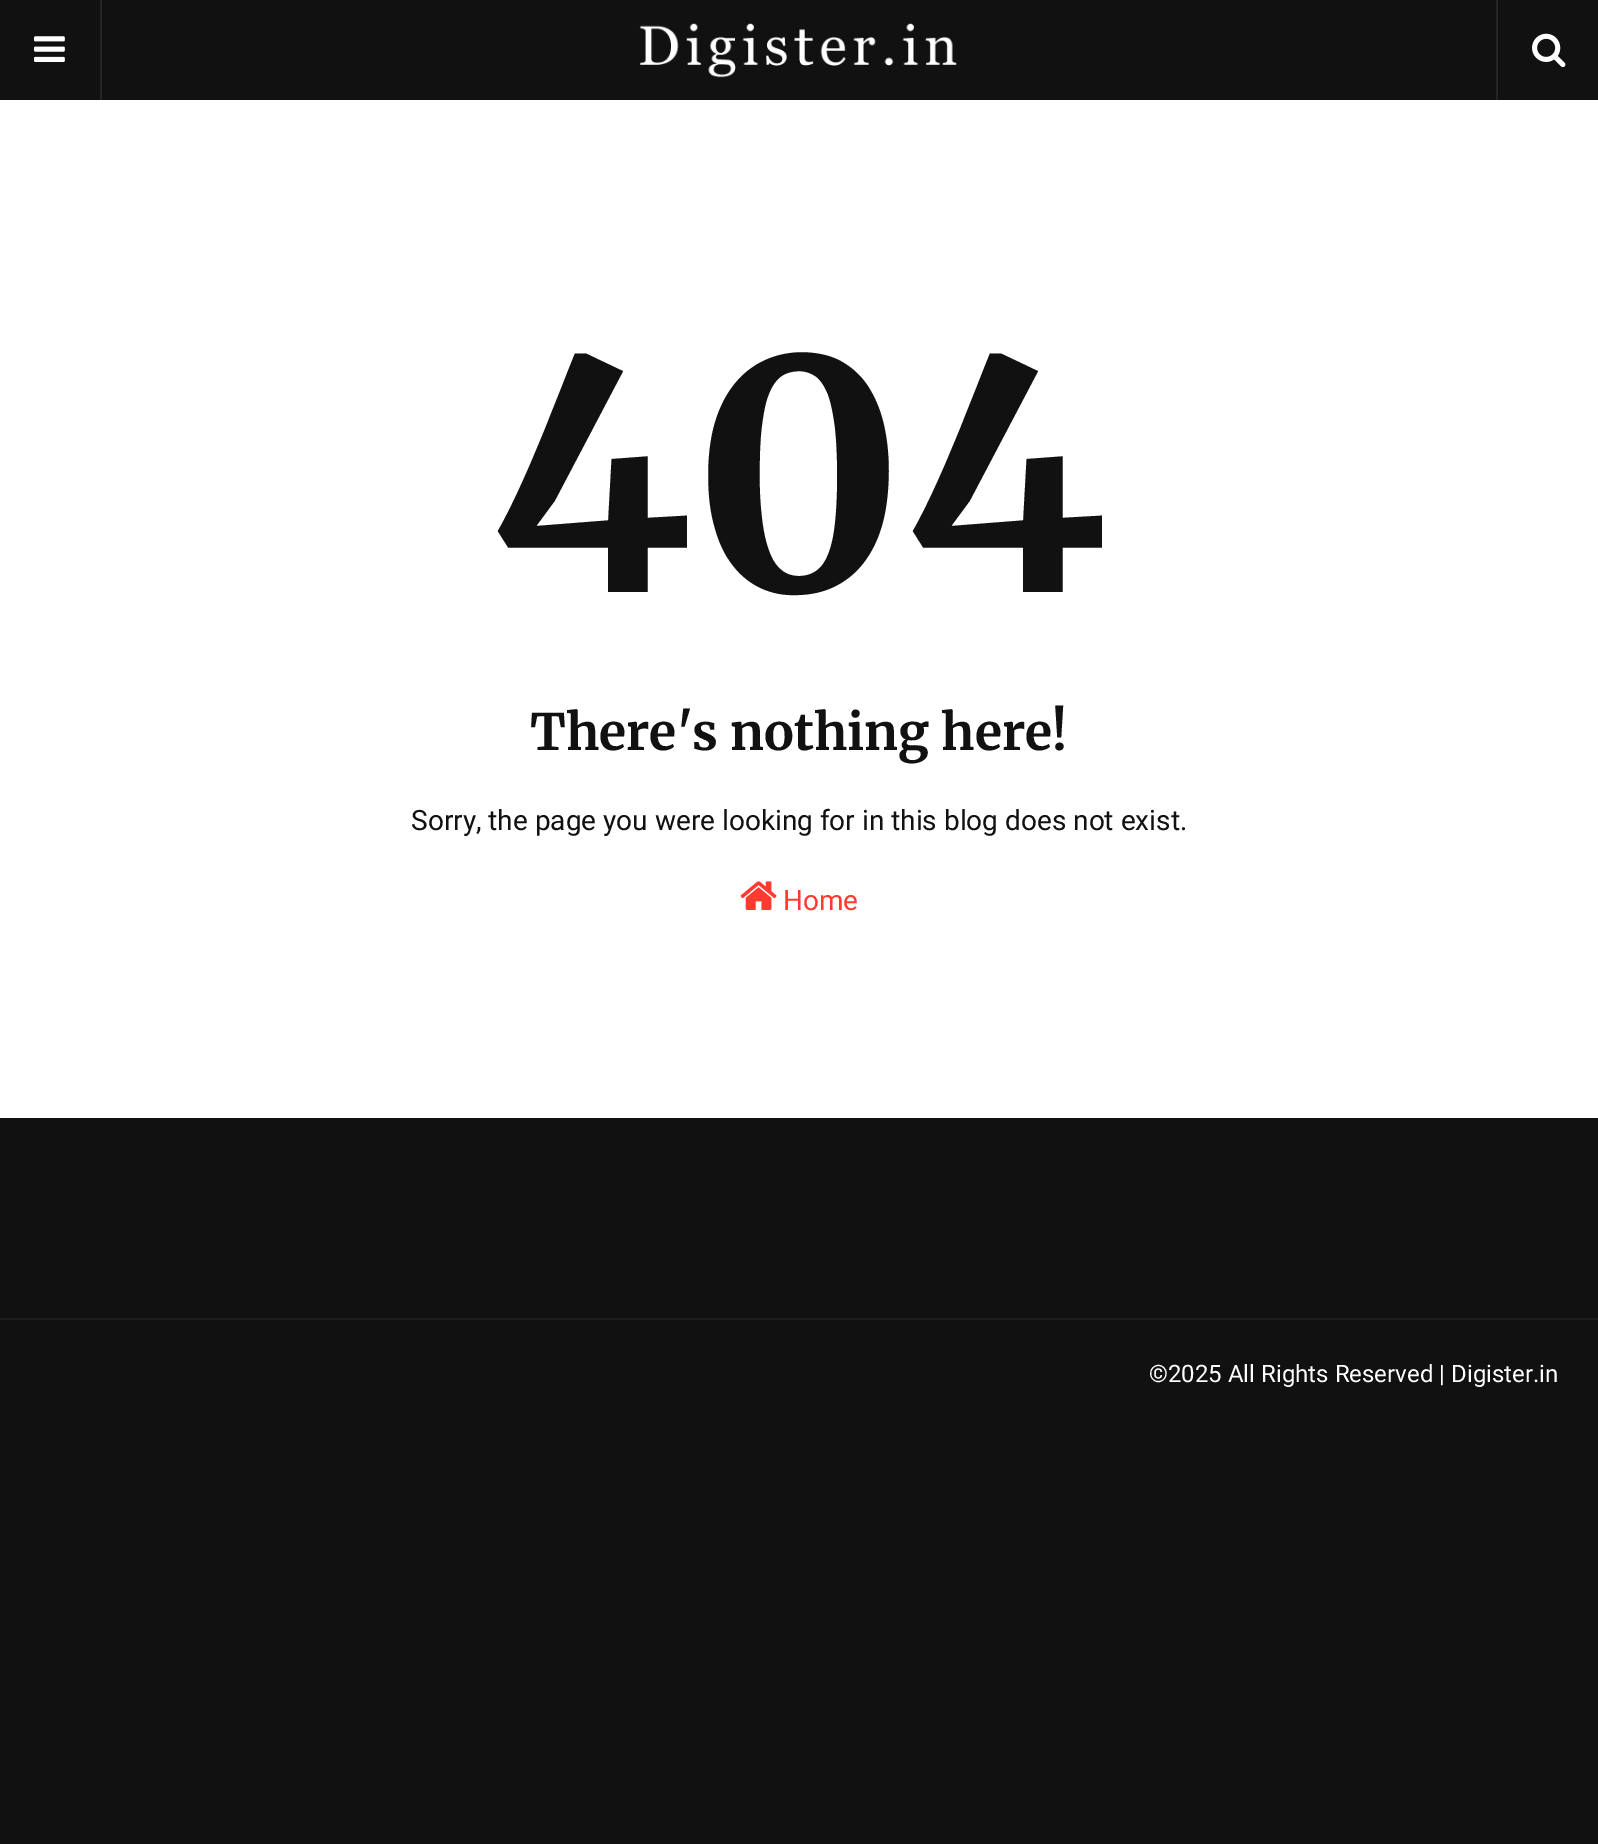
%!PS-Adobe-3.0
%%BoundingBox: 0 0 1598 1844
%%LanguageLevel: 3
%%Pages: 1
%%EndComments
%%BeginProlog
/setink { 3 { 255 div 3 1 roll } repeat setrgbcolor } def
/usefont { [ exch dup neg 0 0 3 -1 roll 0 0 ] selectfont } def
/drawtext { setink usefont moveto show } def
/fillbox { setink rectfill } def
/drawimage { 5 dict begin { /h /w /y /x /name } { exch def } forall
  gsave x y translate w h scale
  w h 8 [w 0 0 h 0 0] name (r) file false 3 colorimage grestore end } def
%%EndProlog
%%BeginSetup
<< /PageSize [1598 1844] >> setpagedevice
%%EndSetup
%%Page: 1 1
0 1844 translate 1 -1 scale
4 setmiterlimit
0 0 1598 1844 17 17 17 fillbox
0 100 1598 1018 255 255 255 fillbox
100 0 2 100 36 36 36 fillbox
(assets/img1.rgb) 34 36 31 26 drawimage
(assets/img2.rgb) 639 23 318 55 drawimage
1496 0 2 100 36 36 36 fillbox
(assets/img3.rgb) 1532 33 34 35 drawimage
(404) 490 592 /Merriweather-Bold 320 17 17 17 drawtext
(There's nothing here!) 530 750 /Merriweather-Bold 50 17 17 17 drawtext
(Sorry, the page you were looking for in this blog does not exist.) 411 830 /Roboto-Regular 28 17 17 17 drawtext
(assets/img4.rgb) 740 881 37 29 drawimage
(Home) 783 910 /Roboto-Regular 28 255 59 48 drawtext
0 1318 1598 2 29 29 29 fillbox
(©2025 All Rights Reserved | Digister.in) 1149 1382 /Roboto-Regular 24 255 255 255 drawtext
showpage
%%EOF
